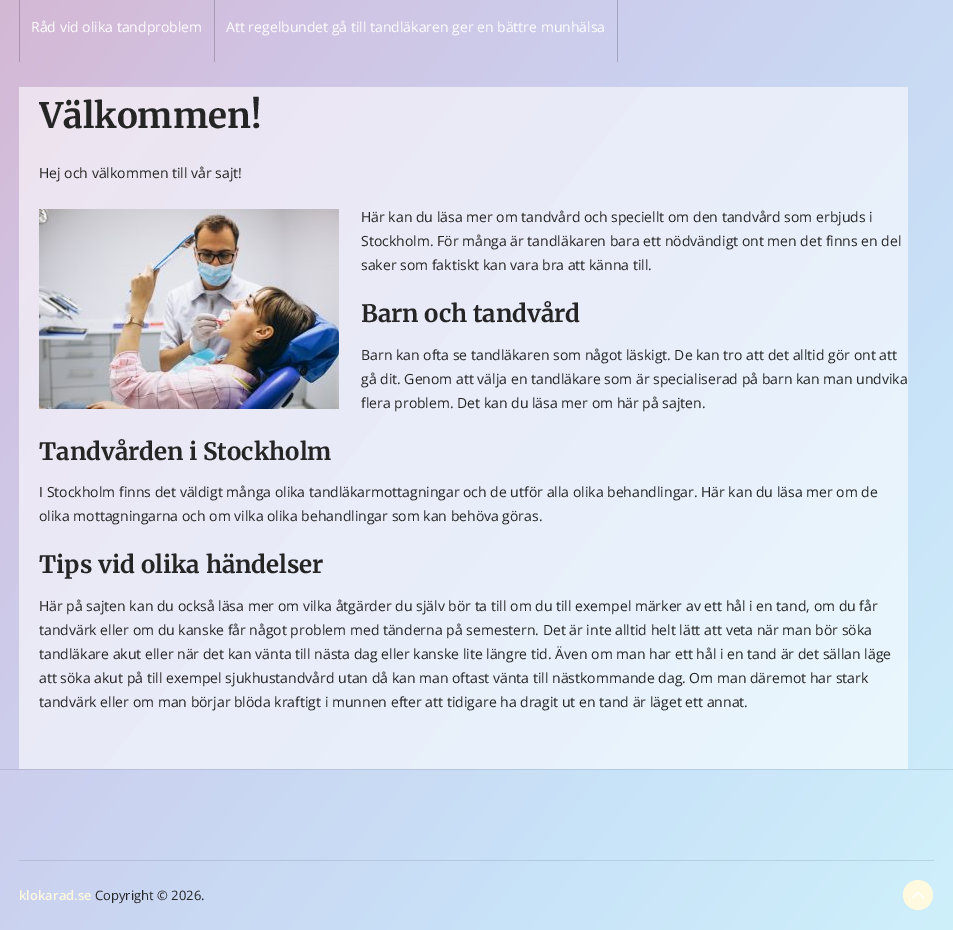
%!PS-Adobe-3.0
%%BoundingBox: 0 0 953 930
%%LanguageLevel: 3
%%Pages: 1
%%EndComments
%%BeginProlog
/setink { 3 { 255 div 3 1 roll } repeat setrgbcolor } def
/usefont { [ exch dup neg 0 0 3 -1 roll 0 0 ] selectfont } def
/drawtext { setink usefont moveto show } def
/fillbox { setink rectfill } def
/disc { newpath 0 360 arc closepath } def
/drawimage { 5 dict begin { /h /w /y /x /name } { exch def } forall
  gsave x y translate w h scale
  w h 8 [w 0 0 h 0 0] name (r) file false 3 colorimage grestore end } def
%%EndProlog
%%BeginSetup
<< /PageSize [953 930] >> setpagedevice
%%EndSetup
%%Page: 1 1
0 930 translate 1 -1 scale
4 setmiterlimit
0 0 953 930 255 255 255 fillbox
gsave 0 0 moveto 953 0 lineto 953 930 lineto 0 930 lineto closepath clip newpath
<< /ShadingType 2 /ColorSpace /DeviceRGB /Coords [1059 796 -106 -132] /Extend [true true] /Function << /FunctionType 3 /Domain [0 1] /Functions [<< /FunctionType 2 /Domain [0 1] /C0 [0.808 0.941 0.984] /C1 [0.784 0.886 0.973] /N 1 >> << /FunctionType 2 /Domain [0 1] /C0 [0.784 0.886 0.973] /C1 [0.792 0.824 0.941] /N 1 >> << /FunctionType 2 /Domain [0 1] /C0 [0.792 0.824 0.941] /C1 [0.82 0.757 0.882] /N 1 >> << /FunctionType 2 /Domain [0 1] /C0 [0.82 0.757 0.882] /C1 [0.843 0.694 0.792] /N 1 >>] /Bounds [0.25 0.5 0.75] /Encode [0 1 0 1 0 1 0 1] >> >> shfill grestore
gsave 19 0 moveto 20 0 lineto 20 62 lineto 19 62 lineto closepath clip newpath
<< /ShadingType 2 /ColorSpace /DeviceRGB /Coords [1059 796 -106 -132] /Extend [true true] /Function << /FunctionType 3 /Domain [0 1] /Functions [<< /FunctionType 2 /Domain [0 1] /C0 [0.647 0.753 0.788] /C1 [0.627 0.71 0.776] /N 1 >> << /FunctionType 2 /Domain [0 1] /C0 [0.627 0.71 0.776] /C1 [0.635 0.659 0.753] /N 1 >> << /FunctionType 2 /Domain [0 1] /C0 [0.635 0.659 0.753] /C1 [0.655 0.604 0.706] /N 1 >> << /FunctionType 2 /Domain [0 1] /C0 [0.655 0.604 0.706] /C1 [0.675 0.557 0.635] /N 1 >>] /Bounds [0.25 0.5 0.75] /Encode [0 1 0 1 0 1 0 1] >> >> shfill grestore
gsave 19 860 moveto 934 860 lineto 934 861 lineto 19 861 lineto closepath clip newpath
<< /ShadingType 2 /ColorSpace /DeviceRGB /Coords [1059 796 -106 -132] /Extend [true true] /Function << /FunctionType 3 /Domain [0 1] /Functions [<< /FunctionType 2 /Domain [0 1] /C0 [0.725 0.847 0.886] /C1 [0.706 0.796 0.875] /N 1 >> << /FunctionType 2 /Domain [0 1] /C0 [0.706 0.796 0.875] /C1 [0.714 0.741 0.847] /N 1 >> << /FunctionType 2 /Domain [0 1] /C0 [0.714 0.741 0.847] /C1 [0.737 0.682 0.796] /N 1 >> << /FunctionType 2 /Domain [0 1] /C0 [0.737 0.682 0.796] /C1 [0.761 0.624 0.714] /N 1 >>] /Bounds [0.25 0.5 0.75] /Encode [0 1 0 1 0 1 0 1] >> >> shfill grestore
gsave 0 769 moveto 953 769 lineto 953 770 lineto 0 770 lineto closepath clip newpath
<< /ShadingType 2 /ColorSpace /DeviceRGB /Coords [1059 796 -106 -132] /Extend [true true] /Function << /FunctionType 3 /Domain [0 1] /Functions [<< /FunctionType 2 /Domain [0 1] /C0 [0.725 0.847 0.886] /C1 [0.706 0.796 0.875] /N 1 >> << /FunctionType 2 /Domain [0 1] /C0 [0.706 0.796 0.875] /C1 [0.714 0.741 0.847] /N 1 >> << /FunctionType 2 /Domain [0 1] /C0 [0.714 0.741 0.847] /C1 [0.737 0.682 0.796] /N 1 >> << /FunctionType 2 /Domain [0 1] /C0 [0.737 0.682 0.796] /C1 [0.761 0.624 0.714] /N 1 >>] /Bounds [0.25 0.5 0.75] /Encode [0 1 0 1 0 1 0 1] >> >> shfill grestore
gsave 19 87 moveto 908 87 lineto 908 769 lineto 19 769 lineto closepath clip newpath
<< /ShadingType 2 /ColorSpace /DeviceRGB /Coords [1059 796 -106 -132] /Extend [true true] /Function << /FunctionType 3 /Domain [0 1] /Functions [<< /FunctionType 2 /Domain [0 1] /C0 [0.918 0.976 0.992] /C1 [0.91 0.953 0.988] /N 1 >> << /FunctionType 2 /Domain [0 1] /C0 [0.91 0.953 0.988] /C1 [0.914 0.925 0.976] /N 1 >> << /FunctionType 2 /Domain [0 1] /C0 [0.914 0.925 0.976] /C1 [0.925 0.898 0.949] /N 1 >> << /FunctionType 2 /Domain [0 1] /C0 [0.925 0.898 0.949] /C1 [0.933 0.871 0.914] /N 1 >>] /Bounds [0.25 0.5 0.75] /Encode [0 1 0 1 0 1 0 1] >> >> shfill grestore
(Råd vid olika tandproblem) 31 32 /OpenSans-Regular 14 255 255 255 drawtext
617 0 1 62 163 165 189 fillbox
214 0 1 62 167 154 179 fillbox
(Att regelbundet gå till tandläkaren ger en bättre munhälsa) 226 32 /OpenSans-Regular 14 255 255 255 drawtext
gsave
39 92 869 49 rectclip
(Välkommen!) 39 128 /Merriweather-Light 35 37 37 37 drawtext
grestore
(Hej och välkommen till vår sajt!) 39 178 /OpenSans-Regular 14 37 37 37 drawtext
(assets/img1.rgb) 39 209 300 200 drawimage
(Här kan du läsa mer om tandvård och speciellt om den tandvård som erbjuds i) 361 222 /OpenSans-Regular 14 37 37 37 drawtext
(Stockholm. För många är tandläkaren bara ett nödvändigt ont men det finns en del) 361 246 /OpenSans-Regular 14 37 37 37 drawtext
(saker som faktiskt kan vara bra att känna till.) 361 270 /OpenSans-Regular 14 37 37 37 drawtext
(Barn och tandvård) 361 322 /Merriweather-Light 24 37 37 37 drawtext
(Barn kan ofta se tandläkaren som något läskigt. De kan tro att det alltid gör ont att) 361 360 /OpenSans-Regular 14 37 37 37 drawtext
(gå dit. Genom att välja en tandläkare som är specialiserad på barn kan man undvika) 361 384 /OpenSans-Regular 14 37 37 37 drawtext
(flera problem. Det kan du läsa mer om här på sajten.) 361 408 /OpenSans-Regular 14 37 37 37 drawtext
(Tandvården i Stockholm) 39 460 /Merriweather-Light 24 37 37 37 drawtext
(I Stockholm finns det väldigt många olika tandläkarmottagningar och de utför alla olika behandlingar. Här kan du läsa mer om de) 39 497 /OpenSans-Regular 14 37 37 37 drawtext
(olika mottagningarna och om vilka olika behandlingar som kan behöva göras.) 39 521 /OpenSans-Regular 14 37 37 37 drawtext
(Tips vid olika händelser) 39 573 /Merriweather-Light 24 37 37 37 drawtext
(Här på sajten kan du också läsa mer om vilka åtgärder du själv bör ta till om du till exempel märker av ett hål i en tand, om du får) 39 611 /OpenSans-Regular 14 37 37 37 drawtext
(tandvärk eller om du kanske får något problem med tänderna på semestern. Det är inte alltid helt lätt att veta när man bör söka) 39 635 /OpenSans-Regular 14 37 37 37 drawtext
(tandläkare akut eller när det kan vänta till nästa dag eller kanske lite längre tid. Även om man har ett hål i en tand är det sällan läge) 39 659 /OpenSans-Regular 14 37 37 37 drawtext
(att söka akut på till exempel sjukhustandvård utan då kan man oftast vänta till nästkommande dag. Om man däremot har stark) 39 683 /OpenSans-Regular 14 37 37 37 drawtext
(tandvärk eller om man börjar blöda kraftigt i munnen efter att tidigare ha dragit ut en tand är läget ett annat.) 39 707 /OpenSans-Regular 14 37 37 37 drawtext
(klokarad.se) 19 900 /OpenSans-SemiBold 13 255 249 224 drawtext
(Copyright © 2026.) 95 900 /OpenSans-Regular 13 37 37 37 drawtext
255 249 224 setink
918 895 15 disc fill
(assets/img2.rgb) 912 891 12 8 drawimage
showpage
%%EOF
